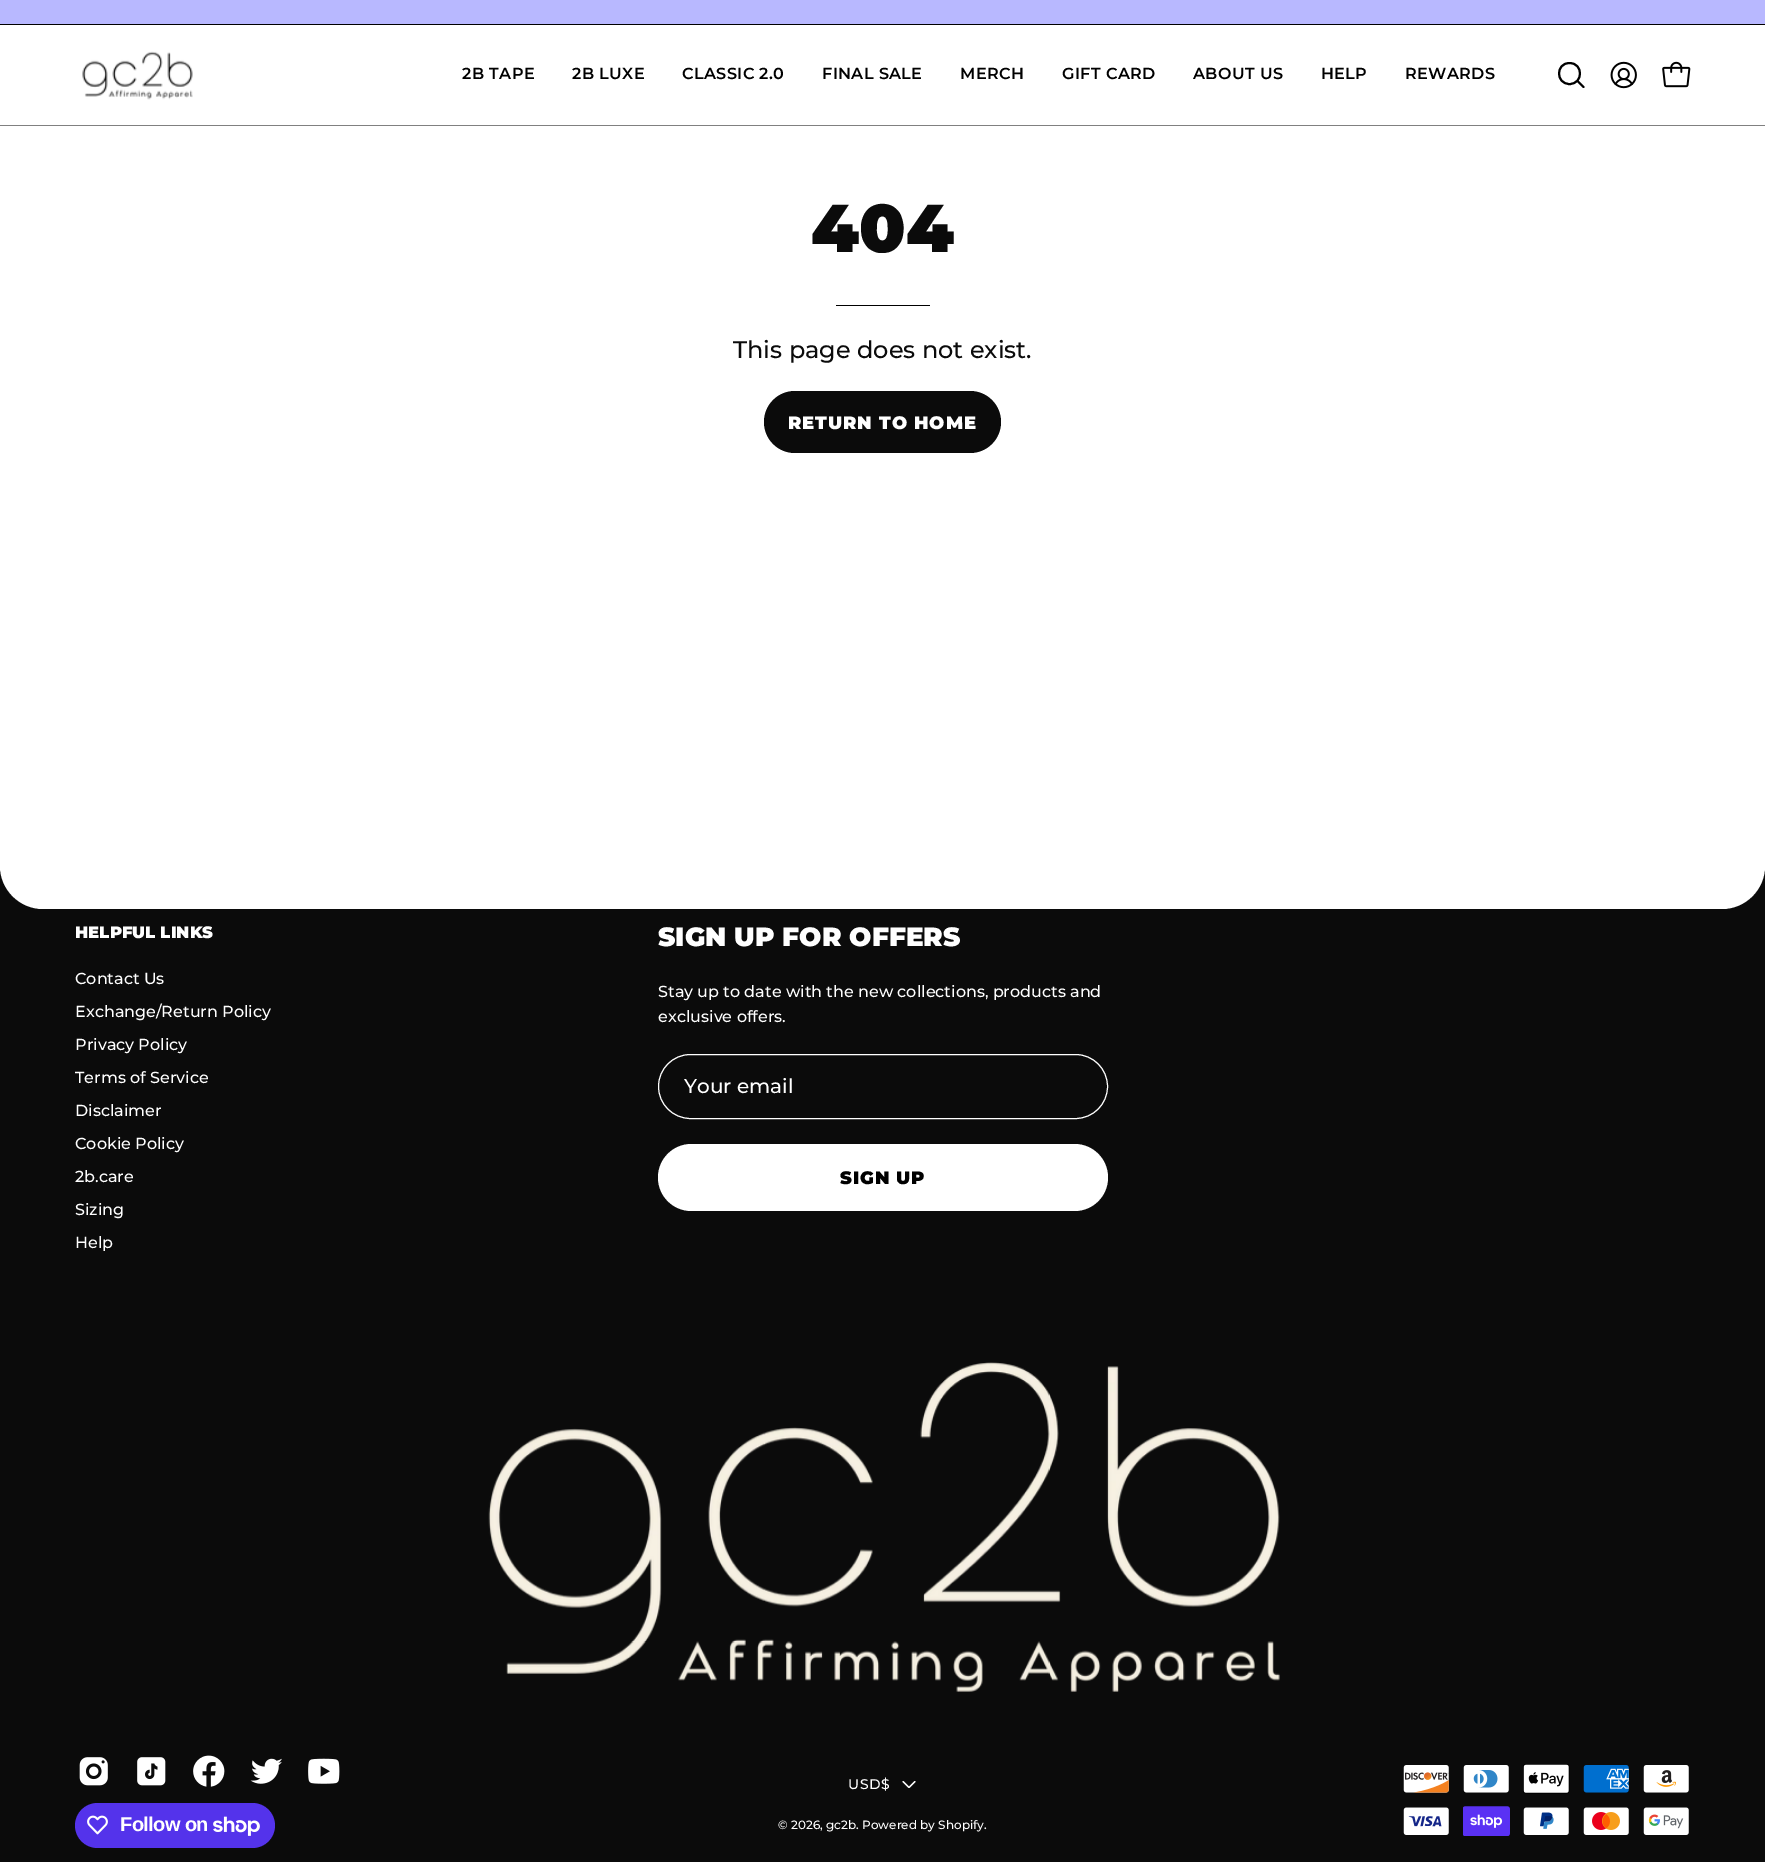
%!PS-Adobe-3.0
%%BoundingBox: 0 0 1765 1862
%%LanguageLevel: 3
%%Pages: 1
%%EndComments
%%BeginProlog
/setink { 3 { 255 div 3 1 roll } repeat setrgbcolor } def
/usefont { [ exch dup neg 0 0 3 -1 roll 0 0 ] selectfont } def
/drawtext { setink usefont moveto show } def
/fillbox { setink rectfill } def
/setalpha { dup .setfillconstantalpha .setstrokeconstantalpha } def
/rrect { 5 dict begin { /r /h /w /y /x } { exch def } forall
  x r add y moveto x w add y 2 copy h add r arct x w add y h add x 1 index r arct
  x y h add x y r arct x y 2 copy exch w add exch r arct closepath end } def
/softshadow { 12 dict begin { /a /b /q /h /w /y /x } { exch def } forall gsave /was 0 def
  9 -2 -9 { dup b mul 4 div /e exch def 1 sub .425 mul 2.718 exch exp 1 add a .99 .min exch div /now exch def
    1 1 now sub 1 was sub div sub setalpha /was now def
    w h .min e 2 mul add 0 gt { x e sub y e sub w e 2 mul add h e 2 mul add
      q e add b .6 mul add w h .min 2 div e add .min 0 .max rrect fill } if } for grestore end } def
/drawimage { 5 dict begin { /h /w /y /x /name } { exch def } forall
  gsave x y translate w h scale
  w h 8 [w 0 0 h 0 0] name (r) file false 3 colorimage grestore end } def
%%EndProlog
%%BeginSetup
<< /PageSize [1765 1862] /PageUsesTransparency true >> setpagedevice
%%EndSetup
%%Page: 1 1
0 .pushpdf14devicefilter
0 1862 translate 1 -1 scale
4 setmiterlimit
0 0 1765 1862 255 255 255 fillbox
0 0 1765 24 184 184 255 fillbox
0 24 1765 1 0 0 0 fillbox
(assets/img1.rgb) 82 51 111 49 drawimage
/Montserrat-SemiBold 16 usefont
462 79 moveto 0.4 0 (2B TAPE) ashow
572 79 moveto 0.4 0 (2B LUXE) ashow
682 79 moveto 0.4 0 (CLASSIC 2.0) ashow
822 79 moveto 0.4 0 (FINAL SALE) ashow
960 79 moveto 0.4 0 (MERCH) ashow
1062 79 moveto 0.4 0 (GIFT CARD) ashow
1193 79 moveto 0.4 0 (ABOUT US) ashow
1321 79 moveto 0.4 0 (HELP) ashow
1405 79 moveto 0.4 0 (REWARDS) ashow
2 setlinewidth
1 setlinecap
1 setlinejoin
1569.5 84 moveto 1583.5 84 1583.5 63 1569.5 63 curveto 1555.5 63 1555.5 84 1569.5 84 curveto closepath 1577.5 81 moveto 1583.5 87 lineto stroke
(assets/img2.rgb) 1610 61 27 28 drawimage
(assets/img3.rgb) 1662 61 29 27 drawimage
0 866 1765 996 11 11 11 fillbox
13 169 1740 759 30 15.5 1 softshadow
255 255 255 setink
0 125 moveto 1765 125 lineto 1765 866 lineto 1765 889.5 1745.5 909 1722 909 curveto 43 909 lineto 19.5 909 0 889.5 0 866 curveto closepath fill
0 125 1765 1 128 128 128 fillbox
(404) 811 252 /Montserrat-Black 67.5 11 11 11 drawtext
836 305 94 1 0 0 0 fillbox
(This page does not exist.) 733 358 /Montserrat-Medium 24 11 11 11 drawtext
764 391 237 62 31 rrect fill
/Montserrat-Black 18 usefont
255 255 255 setink
788 429 moveto 0.9 0 (RETURN TO HOME) ashow
(HELPFUL LINKS) 75 938 /Montserrat-Black 16.5 255 255 255 drawtext
(Contact Us) 75 984 /Montserrat-Medium 16 255 255 255 drawtext
(Exchange/Return Policy) 75 1017 /Montserrat-Medium 16 255 255 255 drawtext
(Privacy Policy) 75 1050 /Montserrat-Medium 16 255 255 255 drawtext
(Terms of Service) 75 1083 /Montserrat-Medium 16 255 255 255 drawtext
(Disclaimer) 75 1116 /Montserrat-Medium 16 255 255 255 drawtext
(Cookie Policy) 75 1149 /Montserrat-Medium 16 255 255 255 drawtext
(2b.care) 75 1182 /Montserrat-Medium 16 255 255 255 drawtext
(Sizing) 75 1215 /Montserrat-Medium 16 255 255 255 drawtext
(Help) 75 1248 /Montserrat-Medium 16 255 255 255 drawtext
(SIGN UP FOR OFFERS) 658 946 /Montserrat-Black 26.4 255 255 255 drawtext
(Stay up to date with the new collections, products and) 658 997 /Montserrat-Medium 16 255 255 255 drawtext
(exclusive offers.) 658 1022 /Montserrat-Medium 16 255 255 255 drawtext
1 setlinewidth
0 setlinecap
0 setlinejoin
658.5 1054.5 449 64 32 rrect stroke
(Your email) 684 1093 /Montserrat-Medium 20 255 255 255 drawtext
658 1144 450 67 33.5 rrect fill
/Montserrat-Black 18 usefont
0 0 0 setink
840 1184 moveto 0.9 0 (SIGN UP) ashow
(assets/img4.rgb) 488 1362 792 330 drawimage
(assets/img5.rgb) 79 1757 29 29 drawimage
(assets/img6.rgb) 137 1757 29 29 drawimage
(assets/img7.rgb) 193 1755 32 32 drawimage
(assets/img8.rgb) 250 1758 32 26 drawimage
(assets/img9.rgb) 308 1758 32 26 drawimage
84 51 235 setink
75 1803 200 45 22.5 rrect fill
(assets/img10.rgb) 87 1815 21 20 drawimage
/LiberationSans-Bold 20 usefont
255 255 255 setink
120 1831 moveto -0.6 0 (Follow on) ashow
(assets/img11.rgb) 213 1816 47 20 drawimage
gsave
849 1765 67 39 19.5 rrect clip newpath
/Montserrat-Medium 14 usefont
848 1789 moveto 0.5 0 (USD$) ashow
grestore
1.2 setlinewidth
1 setlinecap
1 setlinejoin
915 1781.5 moveto 909 1787.5 lineto 903 1781.5 lineto stroke
(© 2026, gc2b. Powered by Shopify.) 778 1829 /Montserrat-Medium 12 255 255 255 drawtext
(assets/img12.rgb) 1403 1765 46 28 drawimage
(assets/img13.rgb) 1463 1765 46 28 drawimage
(assets/img14.rgb) 1523 1764 47 30 drawimage
(assets/img15.rgb) 1583 1765 46 28 drawimage
(assets/img16.rgb) 1643 1765 46 28 drawimage
(assets/img17.rgb) 1403 1807 46 28 drawimage
(assets/img18.rgb) 1463 1806 47 30 drawimage
(assets/img19.rgb) 1523 1807 46 28 drawimage
(assets/img20.rgb) 1583 1807 46 28 drawimage
(assets/img21.rgb) 1643 1807 46 28 drawimage
.poppdf14devicefilter showpage
%%EOF
